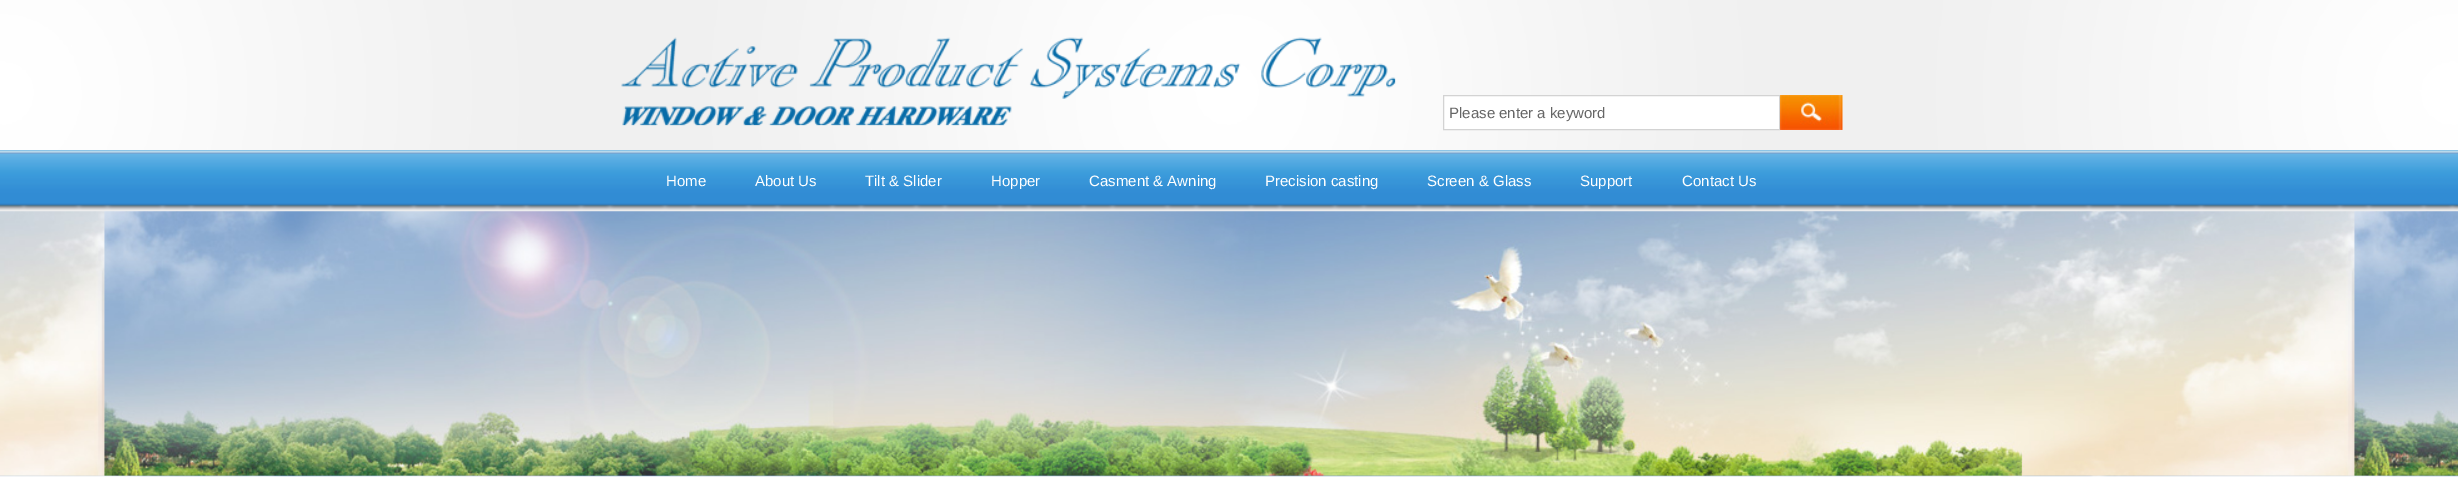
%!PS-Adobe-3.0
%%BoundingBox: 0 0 2458 479
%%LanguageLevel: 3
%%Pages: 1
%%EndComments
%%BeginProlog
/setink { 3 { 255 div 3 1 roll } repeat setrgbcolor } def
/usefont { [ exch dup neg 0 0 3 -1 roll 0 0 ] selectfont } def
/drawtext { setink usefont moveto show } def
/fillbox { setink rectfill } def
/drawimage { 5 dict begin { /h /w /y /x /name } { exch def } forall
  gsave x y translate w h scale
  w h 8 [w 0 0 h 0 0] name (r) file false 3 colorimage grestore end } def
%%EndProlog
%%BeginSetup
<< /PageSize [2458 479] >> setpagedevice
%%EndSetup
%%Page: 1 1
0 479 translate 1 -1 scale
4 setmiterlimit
0 0 2458 479 255 255 255 fillbox
(assets/img1.rgb) 0 0 2458 150 drawimage
(assets/img2.rgb) 621 37 775 89 drawimage
1443.5 95.5 moveto 1779.5 95.5 lineto 1779.5 129.5 lineto 1443.5 129.5 lineto closepath gsave fill grestore
211 211 211 setink
stroke
(Please enter a keyword) 1449 118 /LiberationSans-Regular 15 102 102 102 drawtext
(assets/img3.rgb) 1780 95 63 35 drawimage
(assets/img5.rgb) 0 211 2458 266 drawimage
(assets/img4.rgb) 0 150 2458 62 drawimage
(Home) 666 186 /LiberationSans-Regular 15 255 255 255 drawtext
(About Us) 755 186 /LiberationSans-Regular 15 255 255 255 drawtext
(Tilt & Slider) 865 186 /LiberationSans-Regular 15 255 255 255 drawtext
(Hopper) 991 186 /LiberationSans-Regular 15 255 255 255 drawtext
(Casment & Awning) 1089 186 /LiberationSans-Regular 15 255 255 255 drawtext
(Precision casting) 1265 186 /LiberationSans-Regular 15 255 255 255 drawtext
(Screen & Glass) 1427 186 /LiberationSans-Regular 15 255 255 255 drawtext
(Support) 1580 186 /LiberationSans-Regular 15 255 255 255 drawtext
(Contact Us) 1682 186 /LiberationSans-Regular 15 255 255 255 drawtext
showpage
%%EOF
